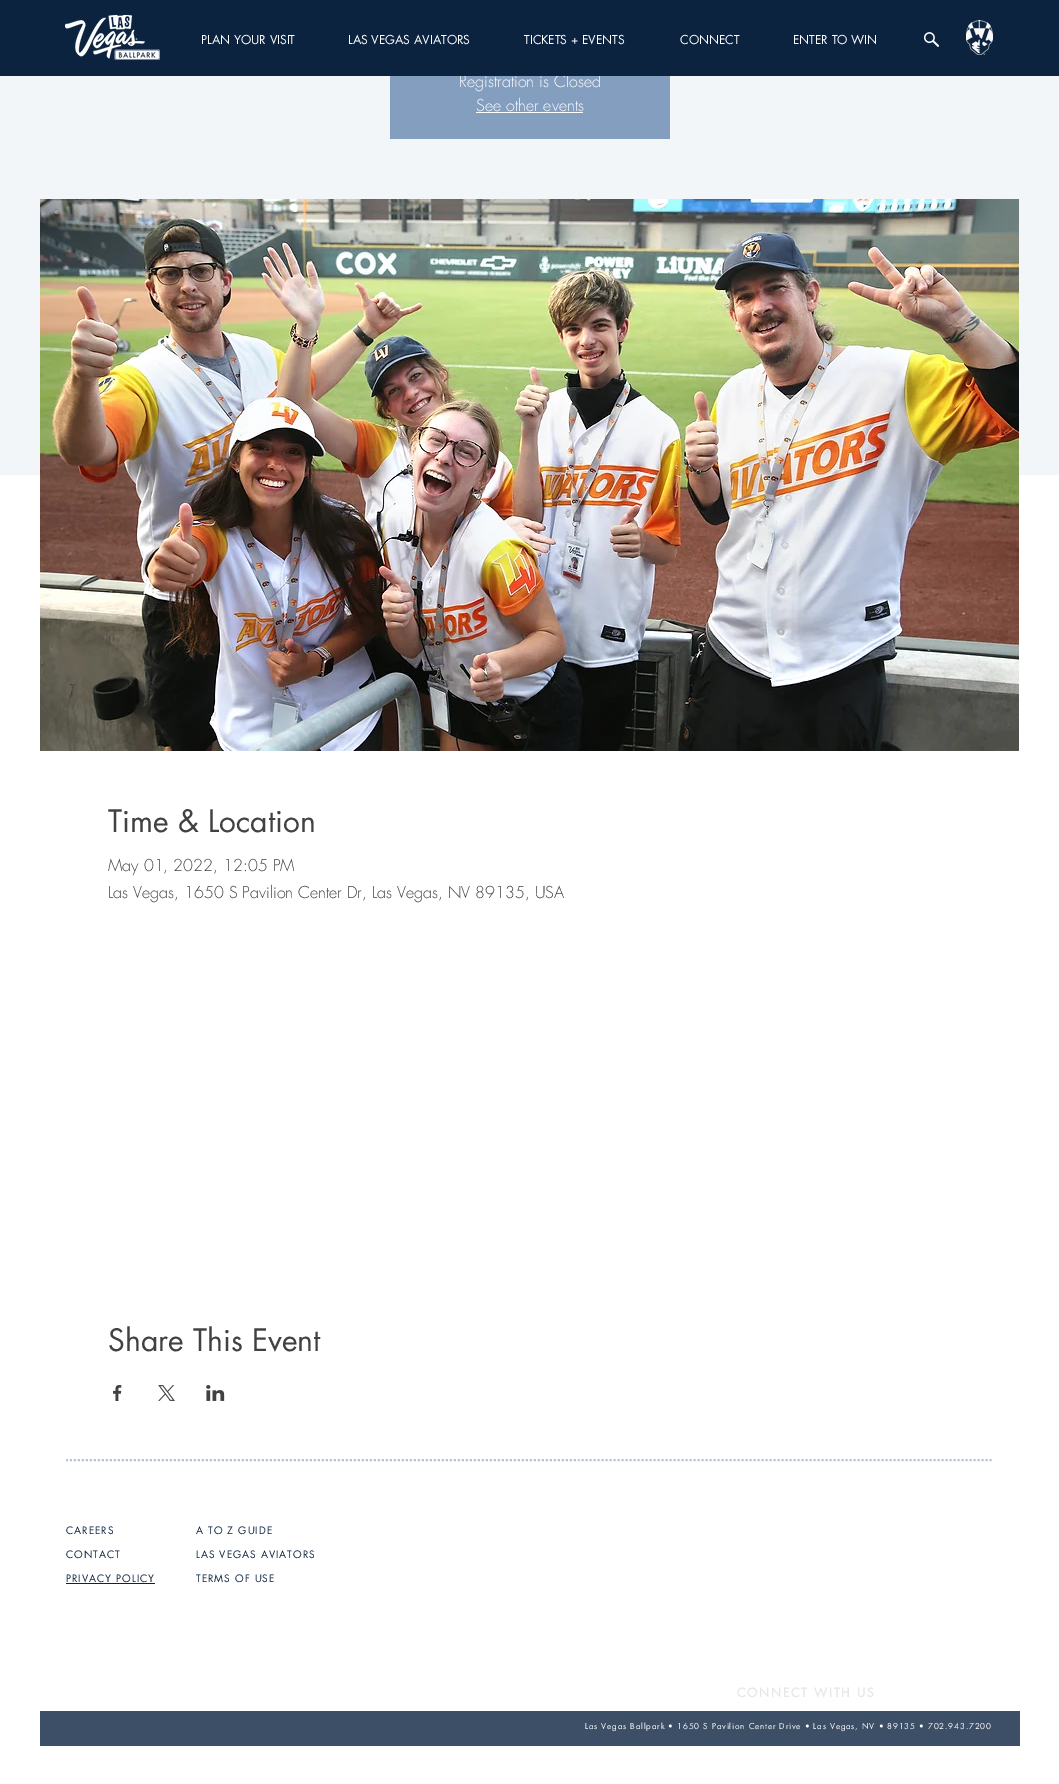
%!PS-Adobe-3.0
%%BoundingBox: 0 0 1059 1784
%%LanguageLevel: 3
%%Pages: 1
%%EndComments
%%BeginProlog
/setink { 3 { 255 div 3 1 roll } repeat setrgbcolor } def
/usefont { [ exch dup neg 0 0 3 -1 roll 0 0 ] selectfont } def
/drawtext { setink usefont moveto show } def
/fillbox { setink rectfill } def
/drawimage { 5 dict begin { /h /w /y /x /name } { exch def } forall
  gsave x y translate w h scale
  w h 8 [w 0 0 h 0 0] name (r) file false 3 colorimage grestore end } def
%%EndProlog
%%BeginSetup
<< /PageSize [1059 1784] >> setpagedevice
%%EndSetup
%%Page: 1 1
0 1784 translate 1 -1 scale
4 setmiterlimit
0 0 1059 1784 255 255 255 fillbox
0 76 1059 399 243 246 249 fillbox
390 76 280 63 132 158 191 fillbox
(Registration is Closed) 459 87 /futura-Light 16 255 255 255 drawtext
0 0 1059 76 12 35 64 fillbox
(assets/img1.rgb) 65 15 95 45 drawimage
(PLAN YOUR VISIT) 201 44 /futura-Regular 12 255 255 255 drawtext
(LAS VEGAS AVIATORS) 348 44 /futura-Regular 12 255 255 255 drawtext
(TICKETS + EVENTS) 524 44 /futura-Regular 12 255 255 255 drawtext
(CONNECT) 680 44 /futura-Regular 12 255 255 255 drawtext
(ENTER TO WIN) 793 44 /futura-Regular 12 255 255 255 drawtext
(assets/img2.rgb) 924 32 15 15 drawimage
(assets/img3.rgb) 966 20 27 35 drawimage
(See other events) 476 111 /futura-Light 16 255 255 255 drawtext
476 112 107 1 255 255 255 fillbox
(assets/img4.rgb) 40 199 979 552 drawimage
(Time & Location) 108 832 /futura-Regular 30 65 65 65 drawtext
(May 01, 2022, 12:05 PM) 108 871 /futura-Light 16 65 65 65 drawtext
(Las Vegas, 1650 S Pavilion Center Dr, Las Vegas, NV 89135, USA) 108 898 /futura-Light 16 65 65 65 drawtext
(Share This Event) 108 1351 /futura-Regular 30 65 65 65 drawtext
(assets/img5.rgb) 113 1385 9 16 drawimage
(assets/img6.rgb) 158 1385 17 16 drawimage
(assets/img7.rgb) 206 1385 19 16 drawimage
182 197 217 setink
2 setlinewidth
[2 2] 0 setdash
66 1460 moveto 993 1460 lineto stroke
/futura-Regular 10 usefont
12 35 64 setink
66 1534 moveto 1 0 (CAREERS) ashow
66 1558 moveto 1 0 (CONTACT) ashow
66 1582 moveto 1 0 (PRIVACY POLICY) ashow
66 1583 89 1 12 35 64 fillbox
196 1534 moveto 1 0 (A TO Z GUIDE) ashow
196 1558 moveto 1 0 (LAS VEGAS AVIATORS) ashow
196 1582 moveto 1 0 (TERMS OF USE) ashow
/futura-Bold 12 usefont
232 230 230 setink
737 1697 moveto 1.75 0 (CONNECT WITH US) ashow
40 1711 980 35 61 79 102 fillbox
/futura-Regular 8 usefont
255 255 255 setink
585 1729 moveto 0.8 0 (Las Vegas Ballpark • 1650 S Pavilion Center Drive • Las Vegas, NV • 89135 • 702.943.7200) ashow
showpage
%%EOF
